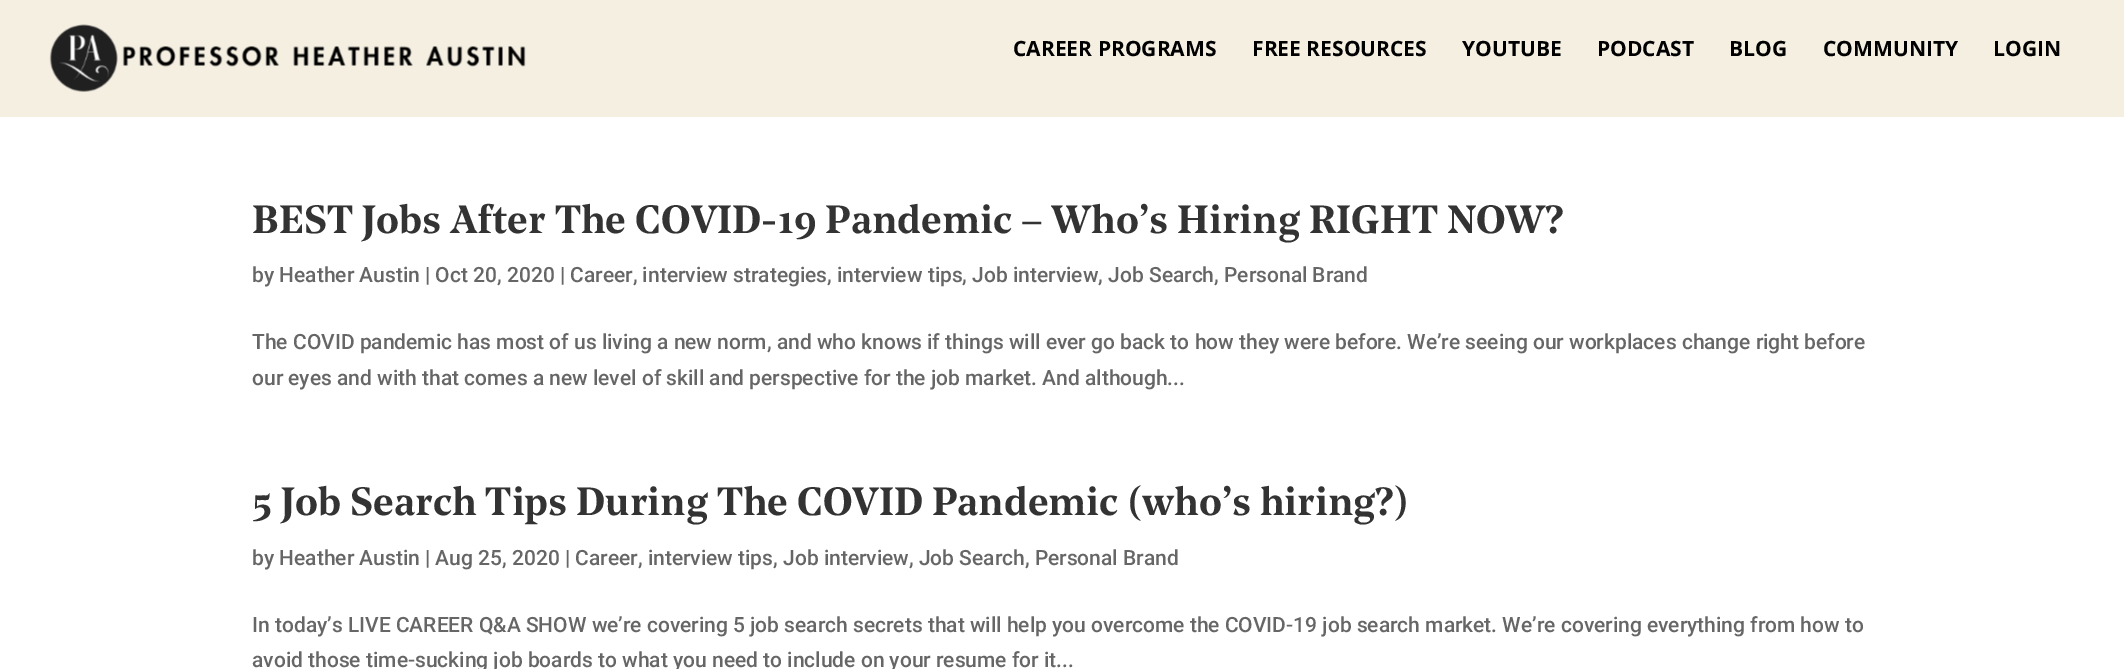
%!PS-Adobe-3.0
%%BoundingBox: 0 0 2124 669
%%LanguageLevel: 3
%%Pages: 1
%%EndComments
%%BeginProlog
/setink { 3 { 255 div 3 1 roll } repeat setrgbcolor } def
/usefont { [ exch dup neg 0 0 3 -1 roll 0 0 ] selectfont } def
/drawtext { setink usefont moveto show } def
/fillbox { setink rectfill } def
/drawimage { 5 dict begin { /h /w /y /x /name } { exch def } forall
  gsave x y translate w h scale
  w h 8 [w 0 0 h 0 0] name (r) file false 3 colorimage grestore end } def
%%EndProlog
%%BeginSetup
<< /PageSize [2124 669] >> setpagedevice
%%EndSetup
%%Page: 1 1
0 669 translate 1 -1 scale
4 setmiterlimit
0 0 2124 669 255 255 255 fillbox
0 0 2124 117 245 239 226 fillbox
(assets/img1.rgb) 49 24 477 68 drawimage
(CAREER PROGRAMS) 1013 56 /OpenSans-Bold 21 0 0 0 drawtext
(FREE RESOURCES) 1252 56 /OpenSans-Bold 21 0 0 0 drawtext
(YOUTUBE) 1462 56 /OpenSans-Bold 21 0 0 0 drawtext
(PODCAST) 1597 56 /OpenSans-Bold 21 0 0 0 drawtext
(BLOG) 1729 56 /OpenSans-Bold 21 0 0 0 drawtext
(COMMUNITY) 1823 56 /OpenSans-Bold 21 0 0 0 drawtext
(LOGIN) 1993 56 /OpenSans-Bold 21 0 0 0 drawtext
(BEST Jobs After The COVID-19 Pandemic – Who’s Hiring RIGHT NOW?) 252 233 /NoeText-SemiBold 39 51 51 51 drawtext
(by Heather Austin | Oct 20, 2020 | Career, interview strategies, interview tips, Job interview, Job Search, Personal Brand) 252 282 /Roboto-Medium 21 102 102 102 drawtext
(The COVID pandemic has most of us living a new norm, and who knows if things will ever go back to how they were before. We’re seeing our workplaces change right before) 252 349 /Roboto-Medium 21 102 102 102 drawtext
(our eyes and with that comes a new level of skill and perspective for the job market. And although...) 252 385 /Roboto-Medium 21 102 102 102 drawtext
(5 Job Search Tips During The COVID Pandemic \(who’s hiring?\)) 252 515 /NoeText-SemiBold 39 51 51 51 drawtext
(by Heather Austin | Aug 25, 2020 | Career, interview tips, Job interview, Job Search, Personal Brand) 252 565 /Roboto-Medium 21 102 102 102 drawtext
(In today’s LIVE CAREER Q&A SHOW we’re covering 5 job search secrets that will help you overcome the COVID-19 job search market. We’re covering everything from how to) 252 632 /Roboto-Medium 21 102 102 102 drawtext
(avoid those time-sucking job boards to what you need to include on your resume for it...) 252 667 /Roboto-Medium 21 102 102 102 drawtext
showpage
%%EOF
